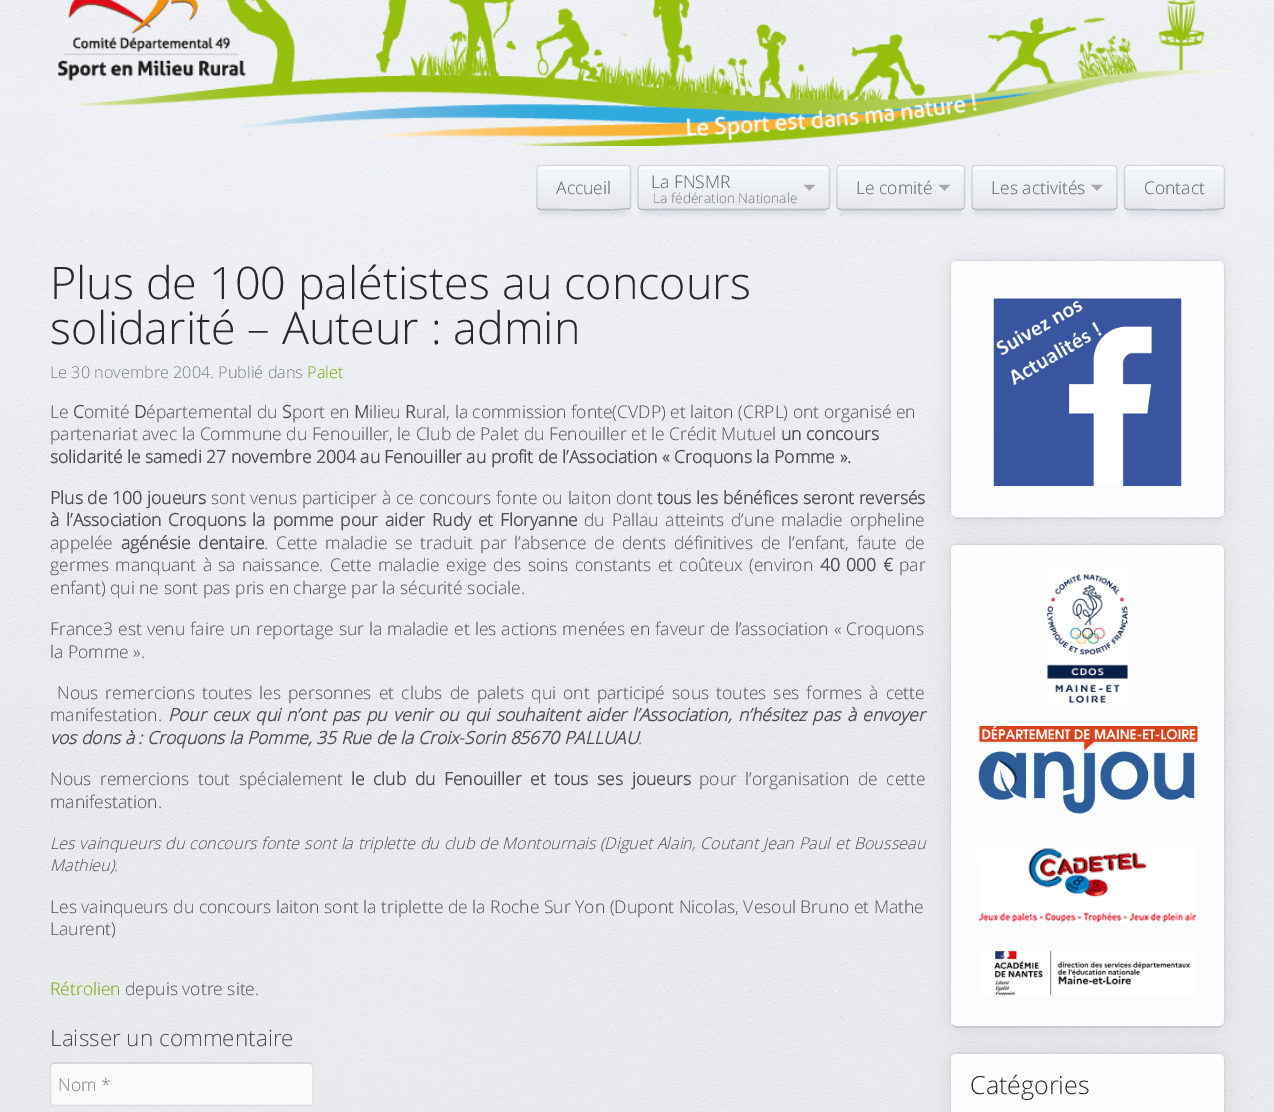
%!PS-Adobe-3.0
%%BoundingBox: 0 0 1274 1112
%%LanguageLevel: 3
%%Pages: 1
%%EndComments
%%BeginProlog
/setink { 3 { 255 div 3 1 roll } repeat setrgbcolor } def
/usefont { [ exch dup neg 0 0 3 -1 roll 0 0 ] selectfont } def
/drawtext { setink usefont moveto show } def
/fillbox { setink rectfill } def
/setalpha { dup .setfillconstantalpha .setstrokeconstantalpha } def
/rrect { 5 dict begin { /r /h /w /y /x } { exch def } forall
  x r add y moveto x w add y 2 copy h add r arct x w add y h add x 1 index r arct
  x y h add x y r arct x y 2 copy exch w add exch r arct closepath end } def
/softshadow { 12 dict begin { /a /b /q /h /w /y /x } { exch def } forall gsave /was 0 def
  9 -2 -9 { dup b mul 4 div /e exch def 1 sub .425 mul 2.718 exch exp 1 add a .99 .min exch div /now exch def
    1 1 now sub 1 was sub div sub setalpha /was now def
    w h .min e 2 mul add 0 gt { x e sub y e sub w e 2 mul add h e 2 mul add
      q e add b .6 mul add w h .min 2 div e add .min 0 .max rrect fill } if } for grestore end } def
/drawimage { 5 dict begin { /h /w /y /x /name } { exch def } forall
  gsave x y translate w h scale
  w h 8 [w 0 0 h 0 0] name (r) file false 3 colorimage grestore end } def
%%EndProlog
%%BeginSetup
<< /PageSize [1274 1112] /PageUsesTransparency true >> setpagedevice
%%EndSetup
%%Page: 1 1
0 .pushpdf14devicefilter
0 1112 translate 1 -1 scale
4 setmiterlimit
0 0 1274 1112 255 255 255 fillbox
gsave 0 0 moveto 1274 0 lineto 1274 1112 lineto 0 1112 lineto closepath clip newpath
<< /ShadingType 2 /ColorSpace /DeviceRGB /Coords [637 -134 638 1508] /Extend [true true] /Function << /FunctionType 3 /Domain [0 1] /Functions [<< /FunctionType 2 /Domain [0 1] /C0 [0.949 0.961 0.98] /C1 [0.914 0.922 0.941] /N 1 >> << /FunctionType 2 /Domain [0 1] /C0 [0.914 0.922 0.941] /C1 [0.914 0.922 0.941] /N 1 >>] /Bounds [0.6] /Encode [0 1 0 1] >> >> shfill grestore
(assets/img1.rgb) 0 0 1274 1112 drawimage
(assets/img2.rgb) 57 0 1177 146 drawimage
0 14 41 setink
541 179 85 35 0 2.5 0.08 softshadow
gsave
536 165 95 45 4 rrect clip newpath
gsave 536 165 moveto 631 165 lineto 631 166 lineto 536 166 lineto closepath clip newpath
<< /ShadingType 2 /ColorSpace /DeviceRGB /Coords [584 124 584 166] /Extend [true true] /Function << /FunctionType 2 /Domain [0 1] /C0 [0.961 0.976 0.988] /C1 [0.902 0.91 0.929] /N 1 >> >> shfill grestore
gsave 536 166 moveto 631 166 lineto 631 209 lineto 536 209 lineto closepath clip newpath
<< /ShadingType 2 /ColorSpace /DeviceRGB /Coords [584 166 584 209] /Extend [true true] /Function << /FunctionType 2 /Domain [0 1] /C0 [0.961 0.976 0.988] /C1 [0.902 0.91 0.929] /N 1 >> >> shfill grestore
gsave 536 209 moveto 631 209 lineto 631 210 lineto 536 210 lineto closepath clip newpath
<< /ShadingType 2 /ColorSpace /DeviceRGB /Coords [584 209 584 251] /Extend [true true] /Function << /FunctionType 2 /Domain [0 1] /C0 [0.961 0.976 0.988] /C1 [0.902 0.91 0.929] /N 1 >> >> shfill grestore
grestore
252 253 254 setink
540 169 moveto 628 169 lineto 629 169 630 170 630 171 curveto 630 168 lineto 630 167 629 166 628 166 curveto 540 166 lineto 539 166 538 167 538 168 curveto 538 171 lineto 538 170 539 169 540 169 curveto closepath fill
0.08 setalpha
0 17 51 setink
1.2 setlinewidth
538 166.5 moveto 540 164.5 605 165.5 613 165.5 curveto 627.5 165.5 lineto 629.5 166.5 lineto stroke
0.14 setalpha
629.5 166.5 moveto 630.5 169 lineto 630.5 206 lineto 629.5 208.5 lineto stroke
0.26 setalpha
629.5 208.5 moveto 627.5 210.5 562.5 209.5 554.5 209.5 curveto 540 209.5 lineto 538 208.5 lineto stroke
0.14 setalpha
538 208.5 moveto 537 206 lineto 537 169 lineto 538 166.5 lineto stroke
1 setalpha
(Accueil) 556 194 /OpenSans-Light 17.5 90 93 99 drawtext
(assets/img3.rgb) 559 206 50 1 drawimage
0 14 41 setink
643 179 182 35 0 2.5 0.08 softshadow
gsave
638 165 192 45 4 rrect clip newpath
gsave 638 165 moveto 830 165 lineto 830 166 lineto 638 166 lineto closepath clip newpath
<< /ShadingType 2 /ColorSpace /DeviceRGB /Coords [734 124 734 166] /Extend [true true] /Function << /FunctionType 2 /Domain [0 1] /C0 [0.961 0.976 0.988] /C1 [0.902 0.91 0.929] /N 1 >> >> shfill grestore
gsave 638 166 moveto 830 166 lineto 830 209 lineto 638 209 lineto closepath clip newpath
<< /ShadingType 2 /ColorSpace /DeviceRGB /Coords [734 166 734 209] /Extend [true true] /Function << /FunctionType 2 /Domain [0 1] /C0 [0.961 0.976 0.988] /C1 [0.902 0.91 0.929] /N 1 >> >> shfill grestore
gsave 638 209 moveto 830 209 lineto 830 210 lineto 638 210 lineto closepath clip newpath
<< /ShadingType 2 /ColorSpace /DeviceRGB /Coords [734 209 734 251] /Extend [true true] /Function << /FunctionType 2 /Domain [0 1] /C0 [0.961 0.976 0.988] /C1 [0.902 0.91 0.929] /N 1 >> >> shfill grestore
grestore
252 253 254 setink
641 169 moveto 826 169 lineto 828 169 829 170 829 171 curveto 829 169 829 166 826 166 curveto 641 166 lineto 639 167 639 169 639 171 curveto 639 170 640 169 641 169 curveto closepath fill
0.08 setalpha
0 17 51 setink
639 166.5 moveto 641 165.5 lineto 826 165.5 lineto 828.5 166.5 lineto stroke
0.14 setalpha
828.5 166.5 moveto 829.5 169 lineto 829.5 206 lineto 828.5 208.5 lineto stroke
0.26 setalpha
828.5 208.5 moveto 826 209.5 lineto 641 209.5 lineto 639 208.5 lineto stroke
0.14 setalpha
639 208.5 moveto 638 206 lineto 638 169 lineto 639 166.5 lineto stroke
1 setalpha
(assets/img4.rgb) 803 184 13 9 drawimage
(La FNSMR) 651 188 /OpenSans-Light 17.5 90 93 99 drawtext
(La fédération Nationale) 653 203 /OpenSans-Light 13.75 120 125 133 drawtext
(assets/img5.rgb) 683 206 103 1 drawimage
0 14 41 setink
841 179 119 35 0 2.5 0.08 softshadow
gsave
836 165 129 45 4 rrect clip newpath
gsave 836 165 moveto 965 165 lineto 965 166 lineto 836 166 lineto closepath clip newpath
<< /ShadingType 2 /ColorSpace /DeviceRGB /Coords [901 124 901 166] /Extend [true true] /Function << /FunctionType 2 /Domain [0 1] /C0 [0.961 0.976 0.988] /C1 [0.902 0.91 0.929] /N 1 >> >> shfill grestore
gsave 836 166 moveto 965 166 lineto 965 209 lineto 836 209 lineto closepath clip newpath
<< /ShadingType 2 /ColorSpace /DeviceRGB /Coords [901 166 901 209] /Extend [true true] /Function << /FunctionType 2 /Domain [0 1] /C0 [0.961 0.976 0.988] /C1 [0.902 0.91 0.929] /N 1 >> >> shfill grestore
gsave 836 209 moveto 965 209 lineto 965 210 lineto 836 210 lineto closepath clip newpath
<< /ShadingType 2 /ColorSpace /DeviceRGB /Coords [901 209 901 251] /Extend [true true] /Function << /FunctionType 2 /Domain [0 1] /C0 [0.961 0.976 0.988] /C1 [0.902 0.91 0.929] /N 1 >> >> shfill grestore
grestore
252 253 254 setink
840 169 moveto 961 169 lineto 963 169 964 170 964 171 curveto 964 168 lineto 964 167 963 166 962 166 curveto 840 166 lineto 839 166 838 167 838 168 curveto 838 171 lineto 838 170 839 169 840 169 curveto closepath fill
0.08 setalpha
0 17 51 setink
838 166.5 moveto 840 165.5 lineto 961 165.5 lineto 963.5 166.5 lineto stroke
0.14 setalpha
963.5 166.5 moveto 964.5 169 lineto 964.5 206 lineto 963.5 208.5 lineto stroke
0.26 setalpha
963.5 208.5 moveto 961 209.5 lineto 840 209.5 lineto 838 208.5 lineto stroke
0.14 setalpha
838 208.5 moveto 837 206 lineto 837 169 lineto 838 166.5 lineto stroke
1 setalpha
(assets/img4.rgb) 938 184 13 9 drawimage
(Le comité) 856 194 /OpenSans-Light 17.5 90 93 99 drawtext
(assets/img6.rgb) 867 206 69 1 drawimage
0 14 41 setink
976 179 137 35 0 2.5 0.08 softshadow
gsave
971 165 147 45 4 rrect clip newpath
gsave 971 165 moveto 1118 165 lineto 1118 166 lineto 971 166 lineto closepath clip newpath
<< /ShadingType 2 /ColorSpace /DeviceRGB /Coords [1044 124 1044 166] /Extend [true true] /Function << /FunctionType 2 /Domain [0 1] /C0 [0.961 0.976 0.988] /C1 [0.902 0.91 0.929] /N 1 >> >> shfill grestore
gsave 971 166 moveto 1118 166 lineto 1118 209 lineto 971 209 lineto closepath clip newpath
<< /ShadingType 2 /ColorSpace /DeviceRGB /Coords [1044 166 1044 209] /Extend [true true] /Function << /FunctionType 2 /Domain [0 1] /C0 [0.961 0.976 0.988] /C1 [0.902 0.91 0.929] /N 1 >> >> shfill grestore
gsave 971 209 moveto 1118 209 lineto 1118 210 lineto 971 210 lineto closepath clip newpath
<< /ShadingType 2 /ColorSpace /DeviceRGB /Coords [1044 209 1044 251] /Extend [true true] /Function << /FunctionType 2 /Domain [0 1] /C0 [0.961 0.976 0.988] /C1 [0.902 0.91 0.929] /N 1 >> >> shfill grestore
grestore
252 253 254 setink
975 169 moveto 1114 169 lineto 1115 169 1116 170 1116 171 curveto 1116 168 lineto 1116 167 1115 166 1114 166 curveto 976 166 lineto 974 166 973 167 973 168 curveto 973 170 lineto closepath fill
0.08 setalpha
0 17 51 setink
973 166.5 moveto 975 165.5 lineto 1114 165.5 lineto 1116 166.5 lineto stroke
0.14 setalpha
1116 166.5 moveto 1117 169 lineto 1117 206 lineto 1116 208.5 lineto stroke
0.26 setalpha
1116 208.5 moveto 1114 209.5 lineto 975 209.5 lineto 973 208.5 lineto stroke
0.14 setalpha
973 208.5 moveto 972 206 lineto 972 169 lineto 973 166.5 lineto stroke
1 setalpha
(assets/img7.rgb) 1091 184 12 9 drawimage
(Les activités) 991 194 /OpenSans-Light 17.5 90 93 99 drawtext
(assets/img8.rgb) 1006 206 78 1 drawimage
0 14 41 setink
1129 179 91 35 0 2.5 0.08 softshadow
gsave
1124 165 101 45 4 rrect clip newpath
gsave 1124 165 moveto 1225 165 lineto 1225 166 lineto 1124 166 lineto closepath clip newpath
<< /ShadingType 2 /ColorSpace /DeviceRGB /Coords [1174 124 1174 166] /Extend [true true] /Function << /FunctionType 2 /Domain [0 1] /C0 [0.961 0.976 0.988] /C1 [0.902 0.91 0.929] /N 1 >> >> shfill grestore
gsave 1124 166 moveto 1225 166 lineto 1225 209 lineto 1124 209 lineto closepath clip newpath
<< /ShadingType 2 /ColorSpace /DeviceRGB /Coords [1174 166 1174 209] /Extend [true true] /Function << /FunctionType 2 /Domain [0 1] /C0 [0.961 0.976 0.988] /C1 [0.902 0.91 0.929] /N 1 >> >> shfill grestore
gsave 1124 209 moveto 1225 209 lineto 1225 210 lineto 1124 210 lineto closepath clip newpath
<< /ShadingType 2 /ColorSpace /DeviceRGB /Coords [1174 209 1174 251] /Extend [true true] /Function << /FunctionType 2 /Domain [0 1] /C0 [0.961 0.976 0.988] /C1 [0.902 0.91 0.929] /N 1 >> >> shfill grestore
grestore
252 253 254 setink
1128 169 moveto 1221 169 lineto 1223 169 1224 170 1224 171 curveto 1224 168 lineto 1224 167 1223 166 1222 166 curveto 1128 166 lineto 1126 166 1125 167 1125 168 curveto 1125 171 lineto 1125 170 1126 169 1128 169 curveto closepath fill
0.08 setalpha
0 17 51 setink
1125.5 166.5 moveto 1127.5 165.5 lineto 1143 165.5 lineto 1151.5 165.5 1221 164.5 1223 166.5 curveto 1223.5 166.5 lineto stroke
0.14 setalpha
1223.5 166.5 moveto 1224.5 169 lineto 1224.5 206 lineto 1223.5 208.5 lineto stroke
0.26 setalpha
1223.5 208.5 moveto 1223 208.5 lineto 1221 210.5 1151.5 209.5 1143 209.5 curveto 1127.5 209.5 lineto 1125.5 208.5 lineto stroke
0.14 setalpha
1125.5 208.5 moveto 1124.5 206 lineto 1124.5 169 lineto 1125.5 166.5 lineto stroke
1 setalpha
(Contact) 1144 194 /OpenSans-Light 17.5 90 93 99 drawtext
(assets/img9.rgb) 1148 206 53 1 drawimage
(Plus de 100 palétistes au concours) 50 299 /OpenSans-Light 45 40 41 43 drawtext
(solidarité – Auteur : admin) 50 344 /OpenSans-Light 45 40 41 43 drawtext
(Le 30 novembre 2004. Publié dans) 50 378 /OpenSans-Light 16.25 120 125 133 drawtext
(Palet) 307 378 /OpenSans-Light 16.25 112 168 0 drawtext
(Le) 50 418 /OpenSans-Light 17.5 75 78 84 drawtext
(C) 73 418 /OpenSans-Bold 17.5 75 78 84 drawtext
(omité) 84 418 /OpenSans-Light 17.5 75 78 84 drawtext
(D) 134 418 /OpenSans-Bold 17.5 75 78 84 drawtext
(épartemental du) 146 418 /OpenSans-Light 17.5 75 78 84 drawtext
(S) 282 418 /OpenSans-Bold 17.5 75 78 84 drawtext
(port en) 292 418 /OpenSans-Light 17.5 75 78 84 drawtext
(M) 354 418 /OpenSans-Bold 17.5 75 78 84 drawtext
(ilieu) 369 418 /OpenSans-Light 17.5 75 78 84 drawtext
(R) 405 418 /OpenSans-Bold 17.5 75 78 84 drawtext
(ural, la commission fonte\(CVDP\) et laiton \(CRPL\) ont organisé en) 416 418 /OpenSans-Light 17.5 75 78 84 drawtext
(partenariat avec la Commune du Fenouiller, le Club de Palet du Fenouiller et le Crédit Mutuel) 50 440 /OpenSans-Light 17.5 75 78 84 drawtext
(un concours) 781 440 /OpenSans-Bold 17.5 75 78 84 drawtext
(solidarité le samedi 27 novembre 2004 au Fenouiller au profit de l’Association « Croquons la Pomme ».) 50 463 /OpenSans-Bold 17.5 75 78 84 drawtext
50 504 moveto 0.25 0 32 (Plus de 100 joueurs) widthshow
/OpenSans-Light 17.5 usefont
211 504 moveto 0.25 0 32 (sont venus participer à ce concours fonte ou laiton dont) widthshow
/OpenSans-Bold 17.5 usefont
657 504 moveto 0.25 0 32 (tous les bénéfices seront reversés) widthshow
50 526 moveto 2.25 0 32 (à l’Association Croquons la pomme pour aider Rudy et Floryanne) widthshow
/OpenSans-Light 17.5 usefont
584 526 moveto 2.25 0 32 (du Pallau atteints d’une maladie orpheline) widthshow
(appelée) 50 549 /OpenSans-Light 17.5 75 78 84 drawtext
/OpenSans-Bold 17.5 usefont
121 549 moveto 3.1 0 32 (agénésie dentaire) widthshow
/OpenSans-Light 17.5 usefont
264 549 moveto 3.1 0 32 (. Cette maladie se traduit par l’absence de dents définitives de l’enfant, faute de) widthshow
50 571 moveto 1.75 0 32 (germes manquant à sa naissance. Cette maladie exige des soins constants et coûteux \(environ) widthshow
/OpenSans-Bold 17.5 usefont
820 571 moveto 1.75 0 32 (40 000 €) widthshow
(par) 899 571 /OpenSans-Light 17.5 75 78 84 drawtext
(enfant\) qui ne sont pas pris en charge par la sécurité sociale.) 50 594 /OpenSans-Light 17.5 75 78 84 drawtext
50 635 moveto 0.5 0 32 (France3 est venu faire un reportage sur la maladie et les actions menées en faveur de l’association « Croquons) widthshow
(la Pomme ».) 50 658 /OpenSans-Light 17.5 75 78 84 drawtext
57 699 moveto 2.6 0 32 (Nous remercions toutes les personnes et clubs de palets qui ont participé sous toutes ses formes à cette) widthshow
(manifestation.) 50 721 /OpenSans-Light 17.5 75 78 84 drawtext
/OpenSans-BoldItalic 17.5 usefont
168 721 moveto 1.75 0 32 (Pour ceux qui n’ont pas pu venir ou qui souhaitent aider l’Association, n’hésitez pas à envoyer) widthshow
(vos dons à : Croquons la Pomme, 35 Rue de la Croix-Sorin 85670 PALLUAU) 50 744 /OpenSans-BoldItalic 17.5 75 78 84 drawtext
(.) 638 744 /OpenSans-Light 17.5 75 78 84 drawtext
50 785 moveto 4 0 32 (Nous remercions tout spécialement) widthshow
/OpenSans-Bold 17.5 usefont
351 785 moveto 4 0 32 (le club du Fenouiller et tous ses joueurs) widthshow
/OpenSans-Light 17.5 usefont
699 785 moveto 4 0 32 (pour l’organisation de cette) widthshow
(manifestation.) 50 808 /OpenSans-Light 17.5 75 78 84 drawtext
/OpenSans-LightItalic 16.25 usefont
50 849 moveto 0.4 0 32 (Les vainqueurs du concours fonte sont la triplette du club de Montournais \(Diguet Alain, Coutant Jean Paul et Bousseau) widthshow
(Mathieu\).) 50 871 /OpenSans-LightItalic 16.25 75 78 84 drawtext
/OpenSans-Light 17.5 usefont
50 913 moveto 0.1 0 32 (Les vainqueurs du concours laiton sont la triplette de la Roche Sur Yon \(Dupont Nicolas, Vesoul Bruno et Mathe) widthshow
(Laurent\)) 50 935 /OpenSans-Light 17.5 75 78 84 drawtext
(Rétrolien) 50 995 /OpenSans-Light 17.5 112 168 0 drawtext
(depuis votre site.) 125 995 /OpenSans-Light 17.5 75 78 84 drawtext
(Laisser un commentaire) 50 1046 /OpenSans-Light 22.5 75 78 84 drawtext
250 250 250 setink
50 1063 264 43 4 rrect fill
204 204 204 setink
51.5 1064 moveto 54 1063 lineto 310 1063 lineto 312 1064 lineto stroke
221 221 221 setink
312 1064 moveto 313 1066 lineto 313 1102.5 lineto 312 1104.5 lineto 310 1105.5 lineto 54 1105.5 lineto 51.5 1104.5 lineto 50.5 1102.5 lineto 50.5 1066 lineto 51.5 1064 lineto stroke
(Nom *) 58 1091 /OpenSans-Light 17.5 120 125 133 drawtext
0 0 0 setink
950 260 275 259 8 9.5 0.07 softshadow
gsave 951 261 273 257 6 rrect clip newpath
<< /ShadingType 2 /ColorSpace /DeviceRGB /Coords [1088 261 1088 518] /Extend [true true] /Function << /FunctionType 2 /Domain [0 1] /C0 [1 1 1] /C1 [0.98 0.988 1] /N 1 >> >> shfill grestore
0.13 setalpha
1222.5 516 moveto 1221 517.5 1219.5 518 1217.5 518 curveto 957.5 518 lineto 955.5 518 954 517.5 952.5 516 curveto stroke
0.05 setalpha
952.5 516 moveto 951.5 515 950.5 513 950.5 511 curveto 950.5 267.5 lineto 950.5 265.5 951.5 264 952.5 262.5 curveto 954 261.5 955.5 260.5 957.5 260.5 curveto 1217.5 260.5 lineto 1219.5 260.5 1221 261.5 1222.5 262.5 curveto 1223.5 264 1224.5 265.5 1224.5 267.5 curveto 1224.5 511 lineto 1224.5 513 1223.5 515 1222.5 516 curveto stroke
1 setalpha
(assets/img10.rgb) 993 298 189 188 drawimage
950 544 275 484 8 9.5 0.07 softshadow
gsave 951 545 273 481 6 rrect clip newpath
<< /ShadingType 2 /ColorSpace /DeviceRGB /Coords [1088 545 1088 1026] /Extend [true true] /Function << /FunctionType 2 /Domain [0 1] /C0 [1 1 1] /C1 [0.98 0.988 1] /N 1 >> >> shfill grestore
0.13 setalpha
1222.5 1025 moveto 1221 1026 1219.5 1027 1217.5 1027 curveto 957.5 1027 lineto 955.5 1027 954 1026 952.5 1025 curveto stroke
0.05 setalpha
952.5 1025 moveto 951.5 1023.5 950.5 1022 950.5 1020 curveto 950.5 551 lineto 950.5 549.5 951.5 547.5 952.5 546.5 curveto 954 545 955.5 544.5 957.5 544.5 curveto 1217.5 544.5 lineto 1219.5 544.5 1221 545 1222.5 546.5 curveto 1223.5 547.5 1224.5 549.5 1224.5 551 curveto 1224.5 1020 lineto 1224.5 1022 1223.5 1023.5 1222.5 1025 curveto stroke
1 setalpha
(assets/img11.rgb) 1047 573 81 131 drawimage
(assets/img12.rgb) 978 726 220 88 drawimage
(assets/img13.rgb) 978 848 219 75 drawimage
(assets/img14.rgb) 979 951 218 44 drawimage
950 1053 275 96 8 9.5 0.07 softshadow
gsave 951 1054 273 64 6 rrect clip newpath
<< /ShadingType 2 /ColorSpace /DeviceRGB /Coords [1088 1054 1088 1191] /Extend [true true] /Function << /FunctionType 2 /Domain [0 1] /C0 [1 1 1] /C1 [0.98 0.988 1] /N 1 >> >> shfill grestore
0.05 setalpha
952.5 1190 moveto 951.5 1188.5 950.5 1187 950.5 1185 curveto 950.5 1060 lineto 950.5 1058 951.5 1056.5 952.5 1055 curveto 954 1054 955.5 1053 957.5 1053 curveto 1217.5 1053 lineto 1219.5 1053 1221 1054 1222.5 1055 curveto 1223.5 1056.5 1224.5 1058 1224.5 1060 curveto 1224.5 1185 lineto 1224.5 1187 1223.5 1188.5 1222.5 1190 curveto stroke
1 setalpha
(Catégories) 970 1094 /OpenSans-Light 25 40 41 43 drawtext
.poppdf14devicefilter showpage
%%EOF
